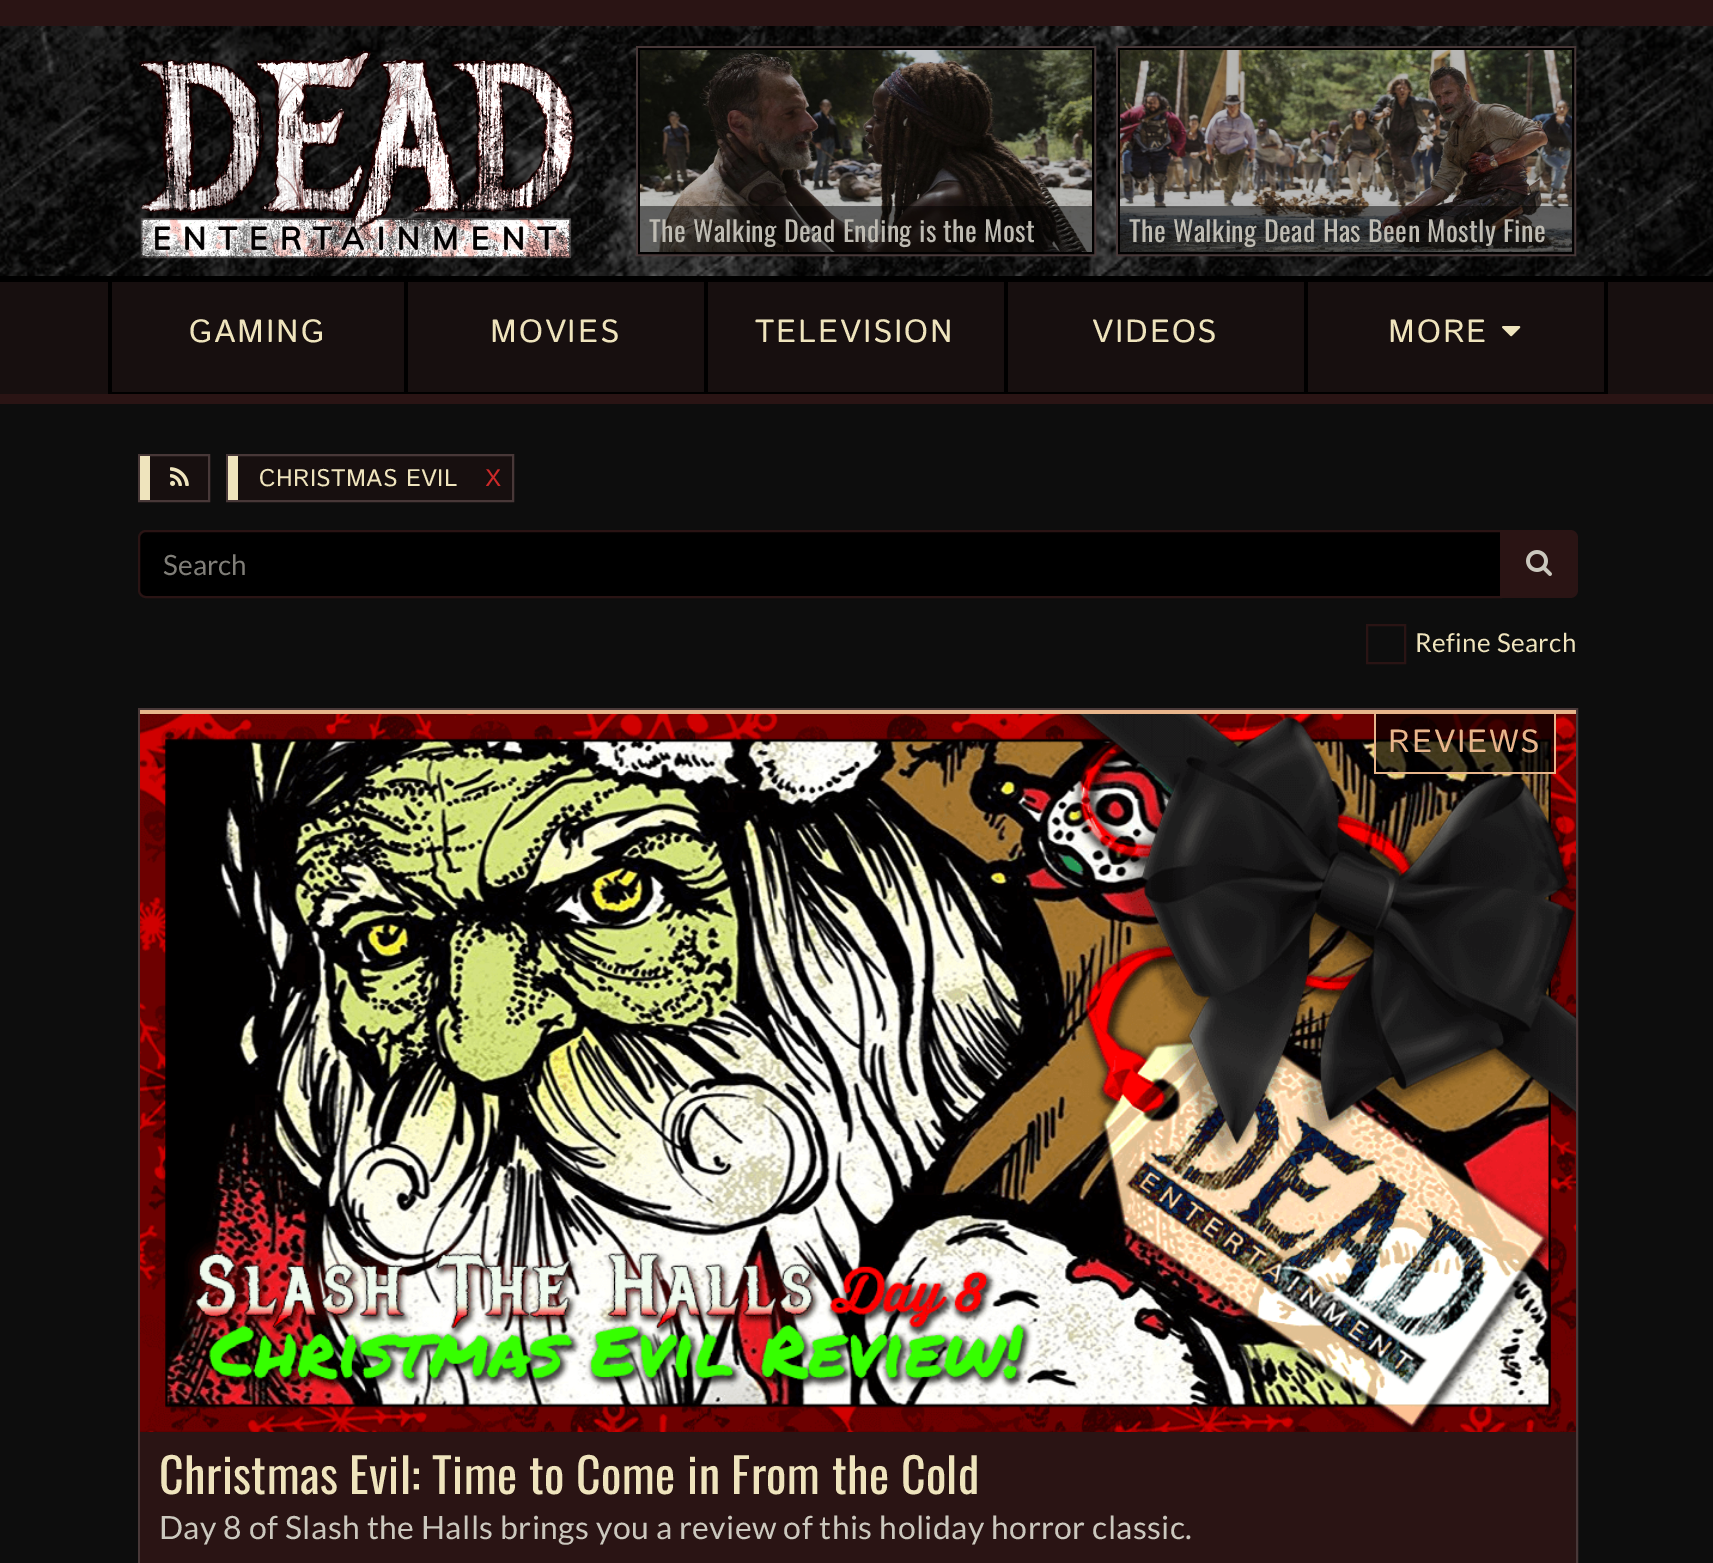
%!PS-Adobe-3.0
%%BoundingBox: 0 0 1713 1563
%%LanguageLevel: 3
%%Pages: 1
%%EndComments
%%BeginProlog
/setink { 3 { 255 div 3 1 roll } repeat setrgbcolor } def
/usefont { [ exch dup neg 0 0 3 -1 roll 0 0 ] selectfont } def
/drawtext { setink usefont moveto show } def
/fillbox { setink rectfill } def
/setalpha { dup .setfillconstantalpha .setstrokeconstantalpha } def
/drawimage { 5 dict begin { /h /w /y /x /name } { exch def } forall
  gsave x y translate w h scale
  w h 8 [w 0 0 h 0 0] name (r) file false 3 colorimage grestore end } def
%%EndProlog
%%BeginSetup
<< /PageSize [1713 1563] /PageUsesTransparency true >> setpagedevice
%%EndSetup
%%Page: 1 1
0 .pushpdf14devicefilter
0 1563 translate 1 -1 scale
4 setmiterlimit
0 0 1713 1563 13 13 13 fillbox
0 0 1713 26 42 20 20 fillbox
(assets/img1.rgb) 0 26 1713 250 drawimage
(assets/img2.rgb) 139 50 437 209 drawimage
72 56 56 setink
2 setlinewidth
637 47 458 208 rectstroke
0 0 0 setink
639 49 454 204 rectstroke
(assets/img3.rgb) 640 50 452 202 drawimage
0.5 setalpha
640 206 452 46 0 0 0 fillbox
/Oswald-Regular 28 usefont
1 setalpha
237 234 222 setink
649 242 moveto 0.4 0 (The Walking Dead Ending is the Most) ashow
0.2 setalpha
640 50 452 202 0 0 0 fillbox
1 setalpha
72 56 56 setink
1117 47 458 208 rectstroke
0 0 0 setink
1119 49 454 204 rectstroke
(assets/img4.rgb) 1120 50 452 202 drawimage
0.5 setalpha
1120 206 452 46 0 0 0 fillbox
1 setalpha
237 234 222 setink
1129 242 moveto 0.4 0 (The Walking Dead Has Been Mostly Fine) ashow
0.2 setalpha
1120 50 452 202 0 0 0 fillbox
1 setalpha
0 282 1713 112 23 15 15 fillbox
0 276 1713 6 0 0 0 fillbox
0 394 1713 10 42 20 20 fillbox
108 392 1500 2 0 0 0 fillbox
404 282 4 110 0 0 0 fillbox
108 282 4 110 0 0 0 fillbox
/IstokWeb-Regular 32 usefont
239 228 189 setink
189 342 moveto 2 0 (GAMING) ashow
704 282 4 110 0 0 0 fillbox
239 228 189 setink
490 342 moveto 2 0 (MOVIES) ashow
1004 282 4 110 0 0 0 fillbox
239 228 189 setink
755 342 moveto 2 0 (TELEVISION) ashow
1304 282 4 110 0 0 0 fillbox
239 228 189 setink
1092 342 moveto 2 0 (VIDEOS) ashow
1604 282 4 110 0 0 0 fillbox
239 228 189 setink
1388 342 moveto 2 0 (MORE) ashow
(assets/img5.rgb) 1502 326 19 11 drawimage
150 456 58 44 23 15 15 fillbox
72 56 56 setink
139 455 70 46 rectstroke
140 456 10 44 239 228 189 fillbox
(assets/img6.rgb) 170 467 19 19 drawimage
238 456 274 44 23 15 15 fillbox
72 56 56 setink
227 455 286 46 rectstroke
228 456 10 44 239 228 189 fillbox
/IstokWeb-Regular 24 usefont
259 486 moveto 0.4 0 (CHRISTMAS EVIL) ashow
204 41 41 setink
485 486 moveto 0.4 0 (X) ashow
0 0 0 setink
146 531 moveto 1501 531 lineto 1501 597 lineto 146 597 lineto 142 597 139 594 139 590 curveto 139 538 lineto 139 534 142 531 146 531 curveto closepath gsave fill grestore
42 20 20 setink
stroke
(Search) 163 575 /Lato-Regular 28 128 126 120 drawtext
42 20 20 setink
1500 530 moveto 1570 530 lineto 1574.5 530 1578 533.5 1578 538 curveto 1578 590 lineto 1578 594.5 1574.5 598 1570 598 curveto 1500 598 lineto closepath fill
(assets/img7.rgb) 1526 550 26 26 drawimage
1367 625 38 38 rectstroke
/Lato-Regular 26 usefont
239 228 189 setink
1415 652 moveto 0.4 0 (Refine Search) ashow
72 56 56 setink
139 709 1438 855 rectstroke
140 710 1436 4 232 181 139 fillbox
(assets/img8.rgb) 140 714 1436 718 drawimage
0.7 setalpha
1376 714 178 58 0 0 0 fillbox
1 setalpha
1554 714 2 60 232 181 139 fillbox
1374 772 182 2 232 181 139 fillbox
1374 714 2 60 232 181 139 fillbox
/IstokWeb-Regular 32 usefont
1388 752 moveto 2 0 (REVIEWS) ashow
140 1432 1436 131 42 20 20 fillbox
/Oswald-Regular 48 usefont
239 228 189 setink
159 1494 moveto 0.4 0 (Christmas Evil: Time to Come in From the Cold) ashow
/Lato-Regular 32 usefont
203 200 190 setink
159 1539 moveto 0.4 0 (Day 8 of Slash the Halls brings you a review of this holiday horror classic.) ashow
.poppdf14devicefilter showpage
%%EOF
